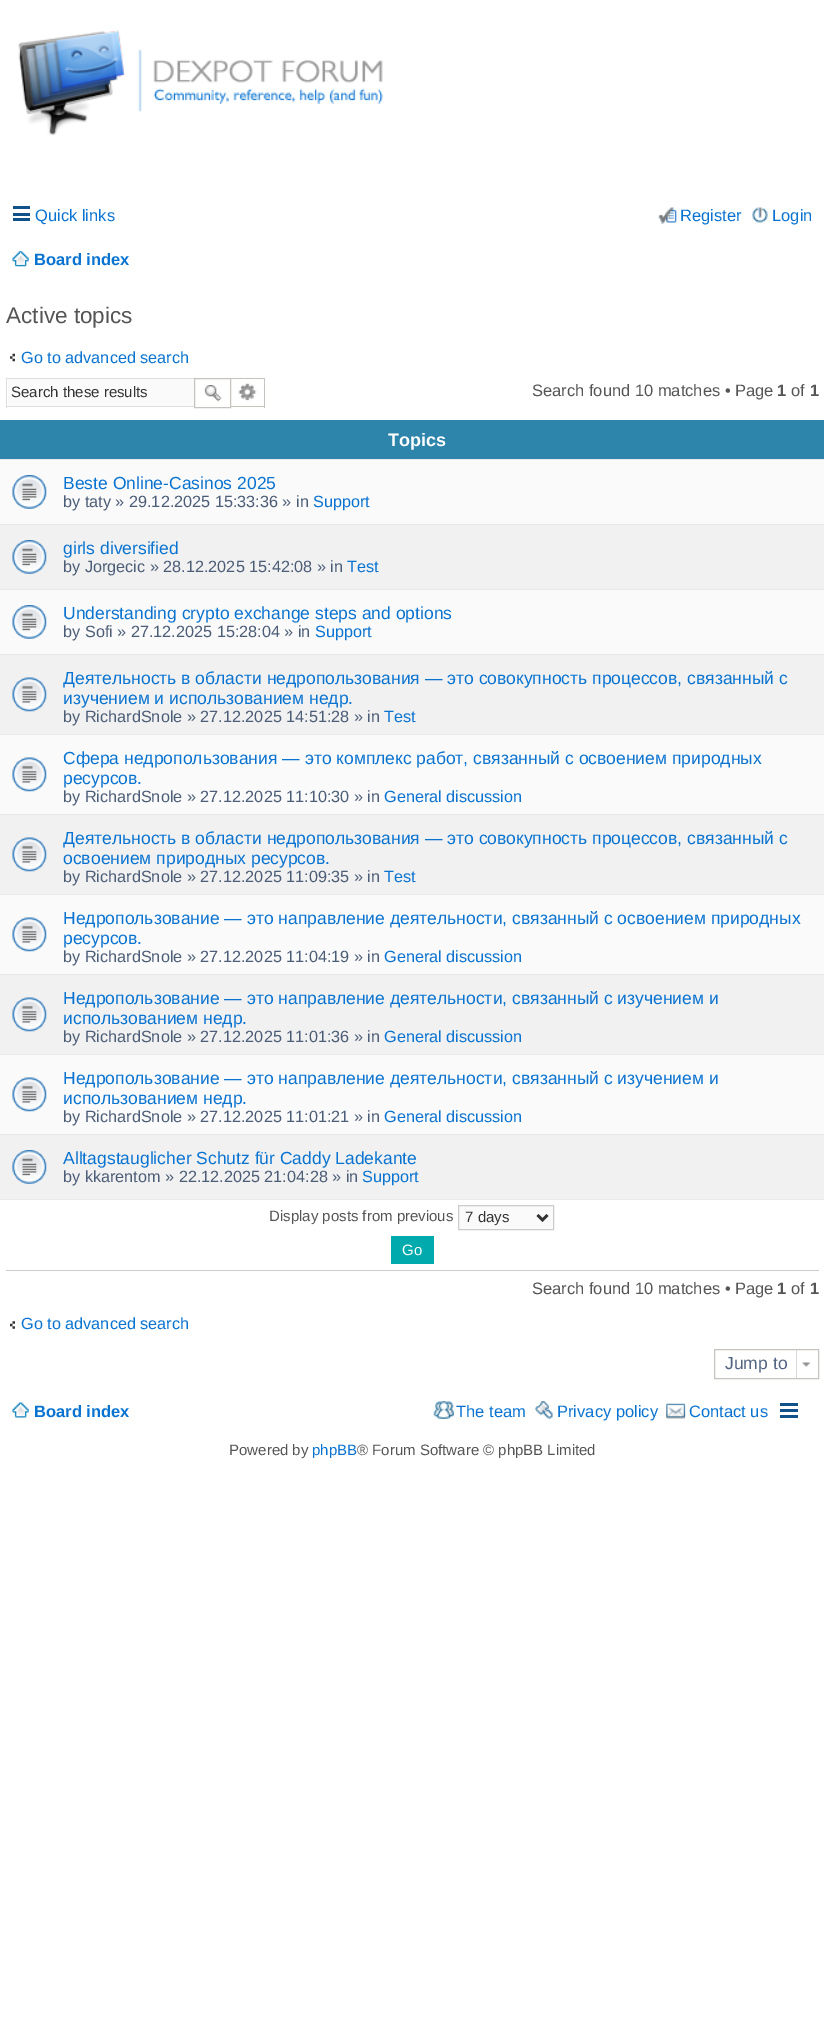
%!PS-Adobe-3.0
%%BoundingBox: 0 0 824 2041
%%LanguageLevel: 3
%%Pages: 1
%%EndComments
%%BeginProlog
/setink { 3 { 255 div 3 1 roll } repeat setrgbcolor } def
/usefont { [ exch dup neg 0 0 3 -1 roll 0 0 ] selectfont } def
/drawtext { setink usefont moveto show } def
/fillbox { setink rectfill } def
/drawimage { 5 dict begin { /h /w /y /x /name } { exch def } forall
  gsave x y translate w h scale
  w h 8 [w 0 0 h 0 0] name (r) file false 3 colorimage grestore end } def
%%EndProlog
%%BeginSetup
<< /PageSize [824 2041] >> setpagedevice
%%EndSetup
%%Page: 1 1
0 2041 translate 1 -1 scale
4 setmiterlimit
0 0 824 2041 255 255 255 fillbox
(assets/img1.rgb) 18 30 365 106 drawimage
13 206 17 3 16 82 137 fillbox
13 213 17 3 16 82 137 fillbox
13 218 17 3 16 82 137 fillbox
(Quick links) 35 221 /LiberationSans-Regular 16.5 9 115 209 drawtext
(assets/img2.rgb) 658 207 19 17 drawimage
(Register) 680 221 /LiberationSans-Regular 16.5 9 115 209 drawtext
(assets/img3.rgb) 752 207 16 16 drawimage
(Login) 772 221 /LiberationSans-Regular 16.5 9 115 209 drawtext
(assets/img4.rgb) 12 251 17 16 drawimage
(Board index) 34 265 /LiberationSans-Bold 16.5 9 115 209 drawtext
(Active topics) 6 323 /LiberationSans-Regular 22.5 85 85 85 drawtext
(assets/img5.rgb) 10 353 5 9 drawimage
(Go to advanced search) 21 363 /LiberationSans-Regular 16.25 9 115 209 drawtext
8 379 186 27 250 250 250 fillbox
6 378 188 1 221 221 221 fillbox
6 406 188 1 221 221 221 fillbox
6 378 1 30 221 221 221 fillbox
(Search these results) 11 397 /LiberationSans-Regular 15 51 51 51 drawtext
199 195 191 setink
194.5 378.5 36 29 rectstroke
(assets/img6.rgb) 204 385 18 17 drawimage
231 378 34 1 199 195 191 fillbox
264 378 1 30 199 195 191 fillbox
231 406 34 1 199 195 191 fillbox
(assets/img7.rgb) 238 383 19 18 drawimage
(Search found 10 matches • Page) 532 396 /LiberationSans-Regular 16.5 85 85 85 drawtext
(1) 777 396 /LiberationSans-Bold 16.5 85 85 85 drawtext
(of) 791 396 /LiberationSans-Regular 16.5 85 85 85 drawtext
(1) 810 396 /LiberationSans-Bold 16.5 85 85 85 drawtext
0 420 824 39 46 133 171 fillbox
0 459 824 1 233 233 233 fillbox
(Topics) 388 446 /LiberationSans-Bold 18 255 255 255 drawtext
0 460 824 64 250 250 250 fillbox
0 524 824 1 233 233 233 fillbox
(assets/img8.rgb) 12 475 35 34 drawimage
(Beste Online-Casinos 2025) 63 489 /LiberationSans-Regular 17.5 9 115 209 drawtext
(by taty » 29.12.2025 15:33:36 » in) 63 507 /LiberationSans-Regular 16.25 76 93 119 drawtext
(Support) 313 507 /LiberationSans-Regular 16.25 9 115 209 drawtext
0 525 824 64 241 241 241 fillbox
0 589 824 1 233 233 233 fillbox
(assets/img9.rgb) 12 540 35 34 drawimage
(girls diversified) 63 554 /LiberationSans-Regular 17.5 9 115 209 drawtext
(by Jorgecic » 28.12.2025 15:42:08 » in) 63 572 /LiberationSans-Regular 16.25 76 93 119 drawtext
(Test) 347 572 /LiberationSans-Regular 16.25 9 115 209 drawtext
0 590 824 64 250 250 250 fillbox
0 654 824 1 233 233 233 fillbox
(assets/img8.rgb) 12 605 35 34 drawimage
(Understanding crypto exchange steps and options) 63 619 /LiberationSans-Regular 17.5 9 115 209 drawtext
(by Sofi » 27.12.2025 15:28:04 » in) 63 637 /LiberationSans-Regular 16.25 76 93 119 drawtext
(Support) 315 637 /LiberationSans-Regular 16.25 9 115 209 drawtext
0 655 824 79 241 241 241 fillbox
0 734 824 1 233 233 233 fillbox
(assets/img10.rgb) 12 677 35 35 drawimage
(Деятельность в области недропользования — это совокупность процессов, связанный с) 63 684 /LiberationSans-Regular 17.5 9 115 209 drawtext
(изучением и использованием недр.) 63 704 /LiberationSans-Regular 17.5 9 115 209 drawtext
(by RichardSnole » 27.12.2025 14:51:28 » in) 63 722 /LiberationSans-Regular 16.25 76 93 119 drawtext
(Test) 384 722 /LiberationSans-Regular 16.25 9 115 209 drawtext
0 735 824 79 250 250 250 fillbox
0 814 824 1 233 233 233 fillbox
(assets/img11.rgb) 12 757 35 35 drawimage
(Сфера недропользования — это комплекс работ, связанный с освоением природных) 63 764 /LiberationSans-Regular 17.5 9 115 209 drawtext
(ресурсов.) 63 784 /LiberationSans-Regular 17.5 9 115 209 drawtext
(by RichardSnole » 27.12.2025 11:10:30 » in) 63 802 /LiberationSans-Regular 16.25 76 93 119 drawtext
(General discussion) 384 802 /LiberationSans-Regular 16.25 9 115 209 drawtext
0 815 824 79 241 241 241 fillbox
0 894 824 1 233 233 233 fillbox
(assets/img10.rgb) 12 837 35 35 drawimage
(Деятельность в области недропользования — это совокупность процессов, связанный с) 63 844 /LiberationSans-Regular 17.5 9 115 209 drawtext
(освоением природных ресурсов.) 63 864 /LiberationSans-Regular 17.5 9 115 209 drawtext
(by RichardSnole » 27.12.2025 11:09:35 » in) 63 882 /LiberationSans-Regular 16.25 76 93 119 drawtext
(Test) 384 882 /LiberationSans-Regular 16.25 9 115 209 drawtext
0 895 824 79 250 250 250 fillbox
0 974 824 1 233 233 233 fillbox
(assets/img11.rgb) 12 917 35 35 drawimage
(Недропользование — это направление деятельности, связанный с освоением природных) 63 924 /LiberationSans-Regular 17.5 9 115 209 drawtext
(ресурсов.) 63 944 /LiberationSans-Regular 17.5 9 115 209 drawtext
(by RichardSnole » 27.12.2025 11:04:19 » in) 63 962 /LiberationSans-Regular 16.25 76 93 119 drawtext
(General discussion) 384 962 /LiberationSans-Regular 16.25 9 115 209 drawtext
0 975 824 79 241 241 241 fillbox
0 1054 824 1 233 233 233 fillbox
(assets/img10.rgb) 12 997 35 35 drawimage
(Недропользование — это направление деятельности, связанный с изучением и) 63 1004 /LiberationSans-Regular 17.5 9 115 209 drawtext
(использованием недр.) 63 1024 /LiberationSans-Regular 17.5 9 115 209 drawtext
(by RichardSnole » 27.12.2025 11:01:36 » in) 63 1042 /LiberationSans-Regular 16.25 76 93 119 drawtext
(General discussion) 384 1042 /LiberationSans-Regular 16.25 9 115 209 drawtext
0 1055 824 79 250 250 250 fillbox
0 1134 824 1 233 233 233 fillbox
(assets/img11.rgb) 12 1077 35 35 drawimage
(Недропользование — это направление деятельности, связанный с изучением и) 63 1084 /LiberationSans-Regular 17.5 9 115 209 drawtext
(использованием недр.) 63 1104 /LiberationSans-Regular 17.5 9 115 209 drawtext
(by RichardSnole » 27.12.2025 11:01:21 » in) 63 1122 /LiberationSans-Regular 16.25 76 93 119 drawtext
(General discussion) 384 1122 /LiberationSans-Regular 16.25 9 115 209 drawtext
0 1135 824 64 241 241 241 fillbox
0 1199 824 1 233 233 233 fillbox
(assets/img12.rgb) 12 1150 35 34 drawimage
(Alltagstauglicher Schutz für Caddy Ladekante) 63 1164 /LiberationSans-Regular 17.5 9 115 209 drawtext
(by kkarentom » 22.12.2025 21:04:28 » in) 63 1182 /LiberationSans-Regular 16.25 76 93 119 drawtext
(Support) 362 1182 /LiberationSans-Regular 16.25 9 115 209 drawtext
(Display posts from previous) 269 1221 /LiberationSans-Regular 15 85 85 85 drawtext
250 250 250 setink
458.5 1205.5 moveto 553.5 1205.5 lineto 553.5 1229.5 lineto 458.5 1229.5 lineto closepath gsave fill grestore
204 204 204 setink
stroke
51 51 51 setink
2.5 setlinewidth
537.5 1215 moveto 542.5 1220 lineto 547.5 1215 lineto stroke
(7 days) 465 1222 /LiberationSans-Regular 15 51 51 51 drawtext
391 1236 43 28 0 170 173 fillbox
(Go) 402 1255 /LiberationSans-Regular 15 255 255 255 drawtext
6 1270 813 1 204 204 204 fillbox
(Search found 10 matches • Page) 532 1294 /LiberationSans-Regular 16.5 85 85 85 drawtext
(1) 777 1294 /LiberationSans-Bold 16.5 85 85 85 drawtext
(of) 791 1294 /LiberationSans-Regular 16.5 85 85 85 drawtext
(1) 810 1294 /LiberationSans-Bold 16.5 85 85 85 drawtext
(assets/img13.rgb) 10 1321 5 8 drawimage
(Go to advanced search) 21 1329 /LiberationSans-Regular 16.25 9 115 209 drawtext
199 195 191 setink
1 setlinewidth
714.5 1349.5 104 29 rectstroke
(Jump to) 725 1369 /LiberationSans-Regular 17.5 83 100 130 drawtext
(assets/img14.rgb) 802 1362 9 5 drawimage
796 1350 1 28 218 218 218 fillbox
(assets/img15.rgb) 12 1402 17 16 drawimage
(Board index) 34 1417 /LiberationSans-Bold 16.5 9 115 209 drawtext
(assets/img16.rgb) 433 1401 21 18 drawimage
(The team) 456 1417 /LiberationSans-Regular 16.5 9 115 209 drawtext
(assets/img17.rgb) 534 1401 19 18 drawimage
(Privacy policy) 557 1417 /LiberationSans-Regular 16.5 9 115 209 drawtext
(assets/img18.rgb) 666 1403 20 16 drawimage
(Contact us) 689 1417 /LiberationSans-Regular 16.5 9 115 209 drawtext
780 1403 18 3 16 82 137 fillbox
780 1409 18 3 16 82 137 fillbox
780 1415 18 3 16 82 137 fillbox
(Powered by) 229 1455 /LiberationSans-Regular 15 85 85 85 drawtext
(phpBB) 312 1455 /LiberationSans-Regular 15 9 115 209 drawtext
(® Forum Software © phpBB Limited) 357 1455 /LiberationSans-Regular 15 85 85 85 drawtext
showpage
%%EOF
